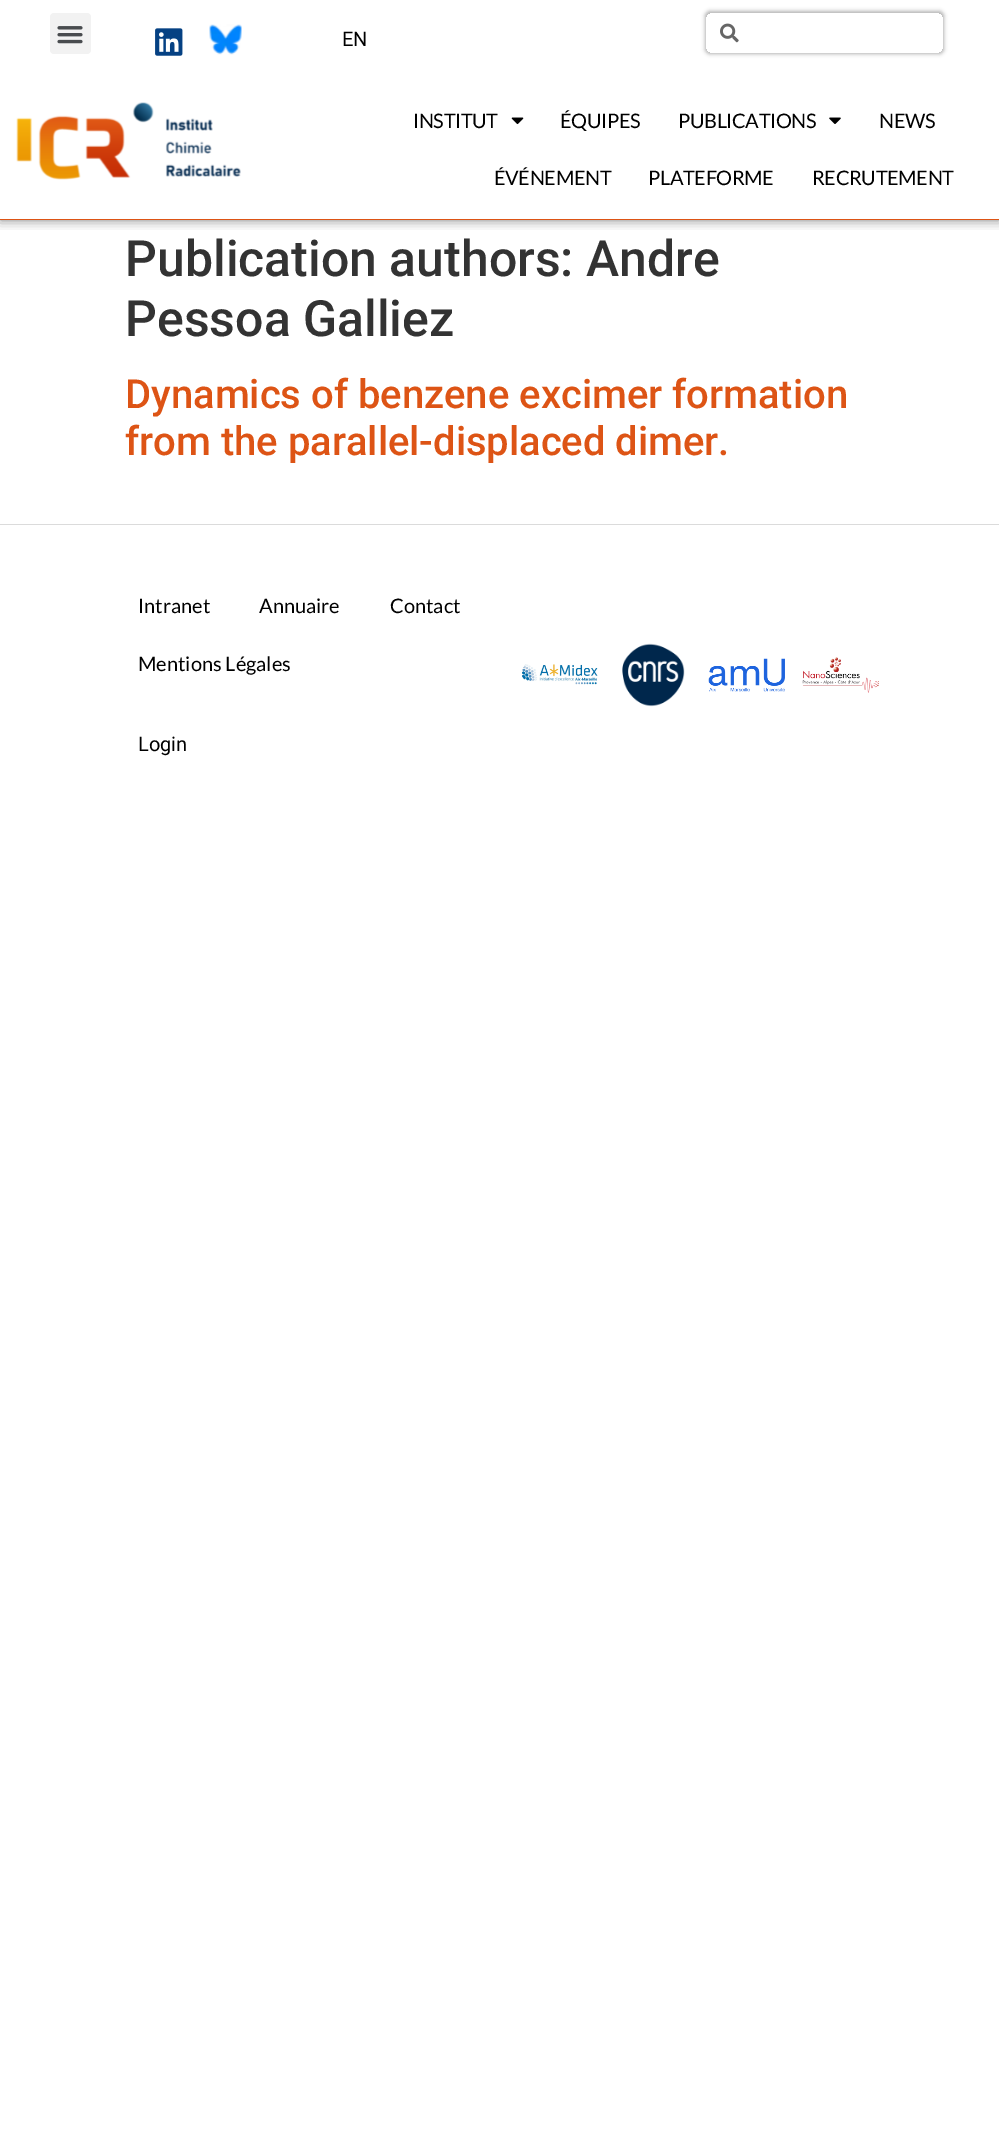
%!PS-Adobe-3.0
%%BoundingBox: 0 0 999 2132
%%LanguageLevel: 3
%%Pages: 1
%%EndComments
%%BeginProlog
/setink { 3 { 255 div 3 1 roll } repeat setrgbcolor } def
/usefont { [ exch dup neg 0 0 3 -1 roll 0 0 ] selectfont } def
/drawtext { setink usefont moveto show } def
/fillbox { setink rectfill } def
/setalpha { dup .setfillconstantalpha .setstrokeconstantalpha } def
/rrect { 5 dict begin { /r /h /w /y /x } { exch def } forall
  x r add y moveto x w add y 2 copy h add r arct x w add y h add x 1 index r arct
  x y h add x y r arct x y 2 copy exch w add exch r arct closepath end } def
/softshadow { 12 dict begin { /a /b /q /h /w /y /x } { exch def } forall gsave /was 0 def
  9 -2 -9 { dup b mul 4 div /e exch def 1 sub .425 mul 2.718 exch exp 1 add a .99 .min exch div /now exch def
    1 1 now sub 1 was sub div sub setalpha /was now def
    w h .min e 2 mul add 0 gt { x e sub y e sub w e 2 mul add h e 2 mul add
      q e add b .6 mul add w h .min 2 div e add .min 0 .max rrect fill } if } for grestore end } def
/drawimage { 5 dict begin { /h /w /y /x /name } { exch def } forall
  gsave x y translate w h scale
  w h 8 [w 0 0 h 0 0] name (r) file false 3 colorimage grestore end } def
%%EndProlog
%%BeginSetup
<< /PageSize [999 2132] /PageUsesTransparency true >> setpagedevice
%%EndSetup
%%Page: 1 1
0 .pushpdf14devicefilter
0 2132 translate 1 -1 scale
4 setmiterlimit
0 0 999 2132 255 255 255 fillbox
gsave
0 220 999 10 rectclip
0 0 0 setink
0 0 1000 220 0 6 0.5 softshadow
grestore
0 219 999 1 221 84 21 fillbox
242 242 242 setink
50 13 41 41 4 rrect fill
(assets/img1.rgb) 57 26 26 18 drawimage
(assets/img2.rgb) 155 28 28 28 drawimage
(assets/img3.rgb) 209 24 33 31 drawimage
(EN) 342 46 /Roboto-Regular 20 0 0 0 drawtext
gsave
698 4 moveto 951 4 lineto 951 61 lineto 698 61 lineto closepath 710 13 moveto 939 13 lineto 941 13 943 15 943 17 curveto 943 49 lineto 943 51 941 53 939 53 curveto 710 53 lineto 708 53 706 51 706 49 curveto 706 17 lineto 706 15 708 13 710 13 curveto closepath eoclip newpath
705 11 239 43 5 2 0.3 softshadow
grestore
(assets/img4.rgb) 720 23 19 20 drawimage
(assets/img5.rgb) 16 102 225 78 drawimage
/Lato-Regular 20 usefont
413 128 moveto -0.4 0 (INSTITUT) ashow
(assets/img6.rgb) 511 117 13 8 drawimage
560 128 moveto -0.4 0 (ÉQUIPES) ashow
678 128 moveto -0.4 0 (PUBLICATIONS) ashow
(assets/img7.rgb) 829 117 12 7 drawimage
879 128 moveto -0.4 0 (NEWS) ashow
494 185 moveto -0.4 0 (ÉVÉNEMENT) ashow
648 185 moveto -0.4 0 (PLATEFORME) ashow
812 185 moveto -0.4 0 (RECRUTEMENT) ashow
(Publication authors: Andre) 125 276 /Roboto-Medium 50 51 51 51 drawtext
(Pessoa Galliez) 125 336 /Roboto-Medium 50 51 51 51 drawtext
(Dynamics of benzene excimer formation) 125 408 /Roboto-Medium 40 221 84 21 drawtext
(from the parallel-displaced dimer.) 125 455 /Roboto-Medium 40 221 84 21 drawtext
0 524 999 1 219 219 219 fillbox
(Intranet) 138 613 /Lato-Regular 20 0 0 0 drawtext
(Annuaire) 259 613 /Lato-Regular 20 0 0 0 drawtext
(Contact) 390 613 /Lato-Regular 20 0 0 0 drawtext
(Mentions Légales) 138 671 /Lato-Regular 20 0 0 0 drawtext
(Login) 138 751 /Roboto-Regular 20 0 0 0 drawtext
(assets/img8.rgb) 522 664 76 21 drawimage
(assets/img9.rgb) 622 643 63 64 drawimage
(assets/img10.rgb) 708 658 77 34 drawimage
(assets/img11.rgb) 802 657 77 36 drawimage
.poppdf14devicefilter showpage
%%EOF
